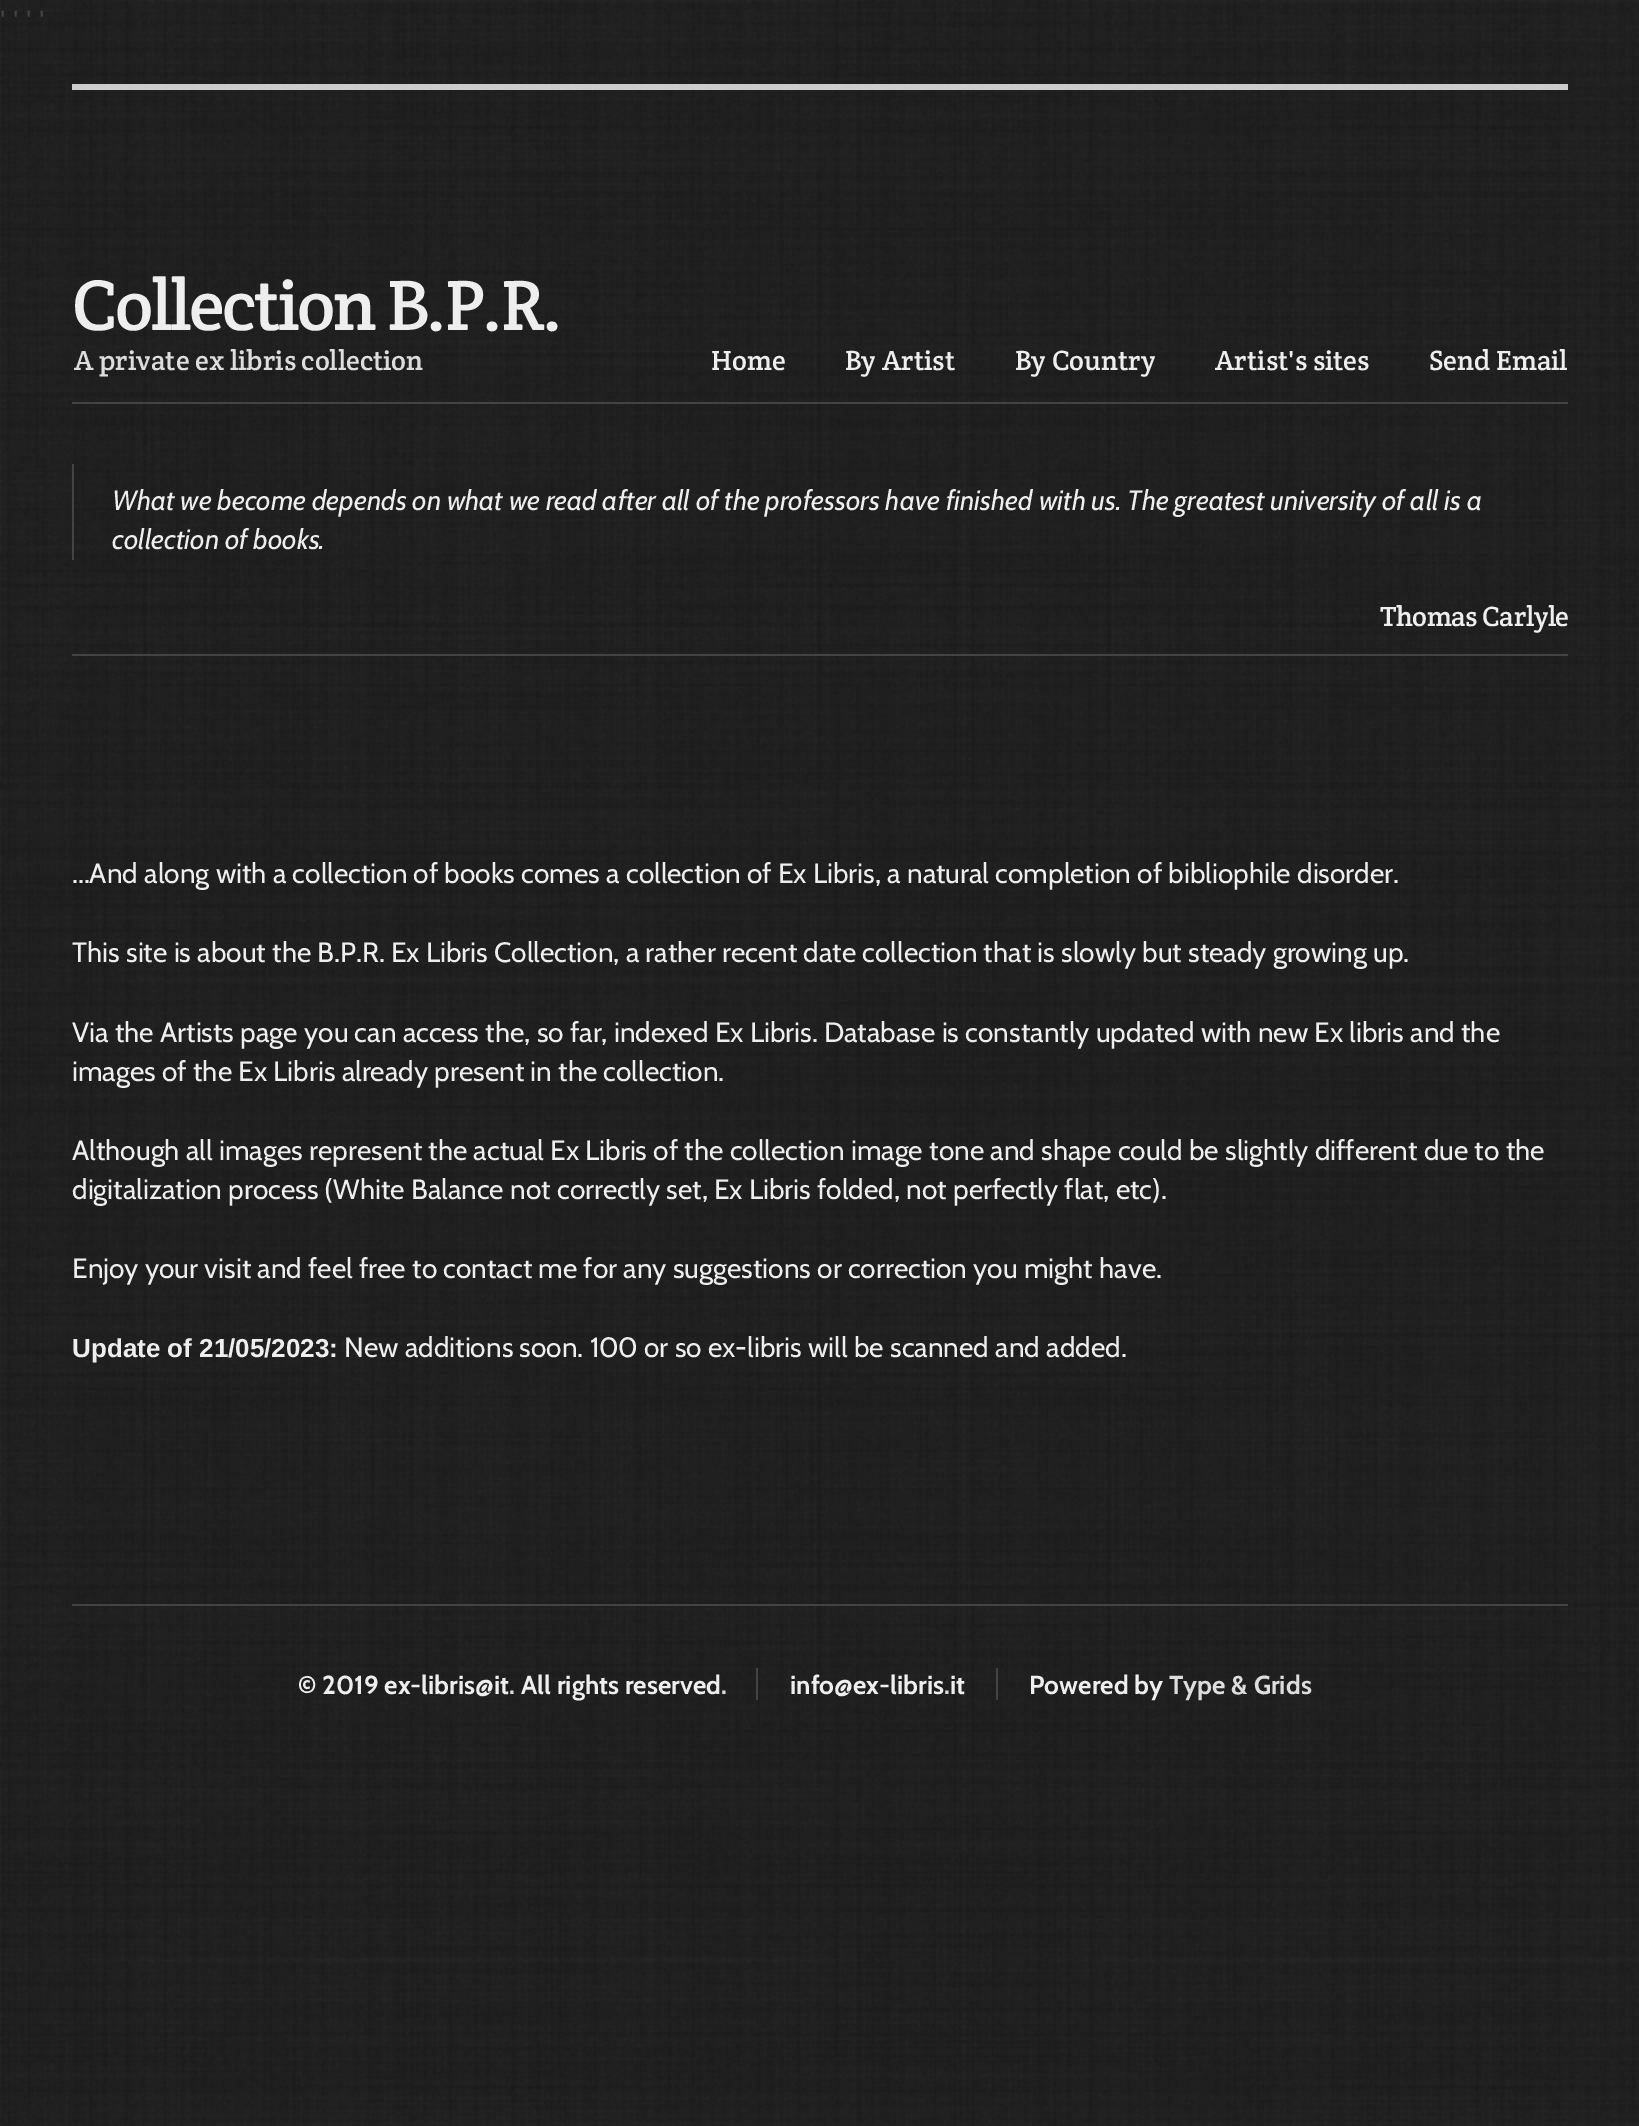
%!PS-Adobe-3.0
%%BoundingBox: 0 0 1639 2126
%%LanguageLevel: 3
%%Pages: 1
%%EndComments
%%BeginProlog
/setink { 3 { 255 div 3 1 roll } repeat setrgbcolor } def
/usefont { [ exch dup neg 0 0 3 -1 roll 0 0 ] selectfont } def
/drawtext { setink usefont moveto show } def
/fillbox { setink rectfill } def
/drawimage { 5 dict begin { /h /w /y /x /name } { exch def } forall
  gsave x y translate w h scale
  w h 8 [w 0 0 h 0 0] name (r) file false 3 colorimage grestore end } def
%%EndProlog
%%BeginSetup
<< /PageSize [1639 2126] >> setpagedevice
%%EndSetup
%%Page: 1 1
0 2126 translate 1 -1 scale
4 setmiterlimit
0 0 1639 2126 255 255 255 fillbox
(assets/img1.rgb) 0 0 1639 2126 drawimage
(' ' ' ') 0 30 /LiberationSans-Regular 28 68 68 68 drawtext
72 84 1496 6 204 204 204 fillbox
/CreteRound-Regular 72 usefont
238 238 238 setink
72 330 moveto -2.2 0 (Collection B.P.R.) ashow
(A private ex libris collection) 74 370 /CreteRound-Regular 28 221 221 221 drawtext
(Home) 711 370 /CreteRound-Regular 28 238 238 238 drawtext
(By Artist) 845 370 /CreteRound-Regular 28 238 238 238 drawtext
(By Country) 1015 370 /CreteRound-Regular 28 238 238 238 drawtext
(Artist's sites) 1215 370 /CreteRound-Regular 28 238 238 238 drawtext
(Send Email) 1429 370 /CreteRound-Regular 28 238 238 238 drawtext
72 402 1496 2 68 68 68 fillbox
72 464 2 96 68 68 68 fillbox
(What we become depends on what we read after all of the professors have finished with us. The greatest university of all is a) 112 510 /Cabin-Italic 28 238 238 238 drawtext
(collection of books.) 112 549 /Cabin-Italic 28 238 238 238 drawtext
/CreteRound-Regular 28 usefont
1380 626 moveto -0.5 0 (Thomas Carlyle) ashow
72 654 1496 2 68 68 68 fillbox
(...And along with a collection of books comes a collection of Ex Libris, a natural completion of bibliophile disorder.) 72 883 /Cabin-Regular 28 238 238 238 drawtext
(This site is about the B.P.R. Ex Libris Collection, a rather recent date collection that is slowly but steady growing up.) 72 962 /Cabin-Regular 28 238 238 238 drawtext
(Via the Artists page you can access the, so far, indexed Ex Libris. Database is constantly updated with new Ex libris and the) 72 1042 /Cabin-Regular 28 238 238 238 drawtext
(images of the Ex Libris already present in the collection.) 72 1081 /Cabin-Regular 28 238 238 238 drawtext
(Although all images represent the actual Ex Libris of the collection image tone and shape could be slightly different due to the) 72 1160 /Cabin-Regular 28 238 238 238 drawtext
(digitalization process \(White Balance not correctly set, Ex Libris folded, not perfectly flat, etc\).) 72 1199 /Cabin-Regular 28 238 238 238 drawtext
(Enjoy your visit and feel free to contact me for any suggestions or correction you might have.) 72 1278 /Cabin-Regular 28 238 238 238 drawtext
(Update of 21/05/2023:) 72 1357 /LiberationSans-Bold 26 238 238 238 drawtext
(New additions soon. 100 or so ex-libris will be scanned and added.) 344 1357 /Cabin-Regular 28 238 238 238 drawtext
72 1604 1496 2 68 68 68 fillbox
(© 2019 ex-libris@it) 298 1694 /Cabin-Bold 26 238 238 238 drawtext
(.) 509 1694 /Cabin-Bold 26 221 221 221 drawtext
(All rights reserved) 521 1694 /Cabin-Bold 26 238 238 238 drawtext
756 1668 2 32 68 68 68 fillbox
(.) 721 1694 /Cabin-Bold 26 221 221 221 drawtext
(info@ex-libris it) 790 1694 /Cabin-Bold 26 238 238 238 drawtext
996 1668 2 32 68 68 68 fillbox
(Powered by) 1029 1694 /Cabin-Bold 26 238 238 238 drawtext
(Type & Grids) 1169 1694 /Cabin-Bold 26 221 221 221 drawtext
(.) 944 1694 /Cabin-Bold 26 221 221 221 drawtext
showpage
%%EOF
